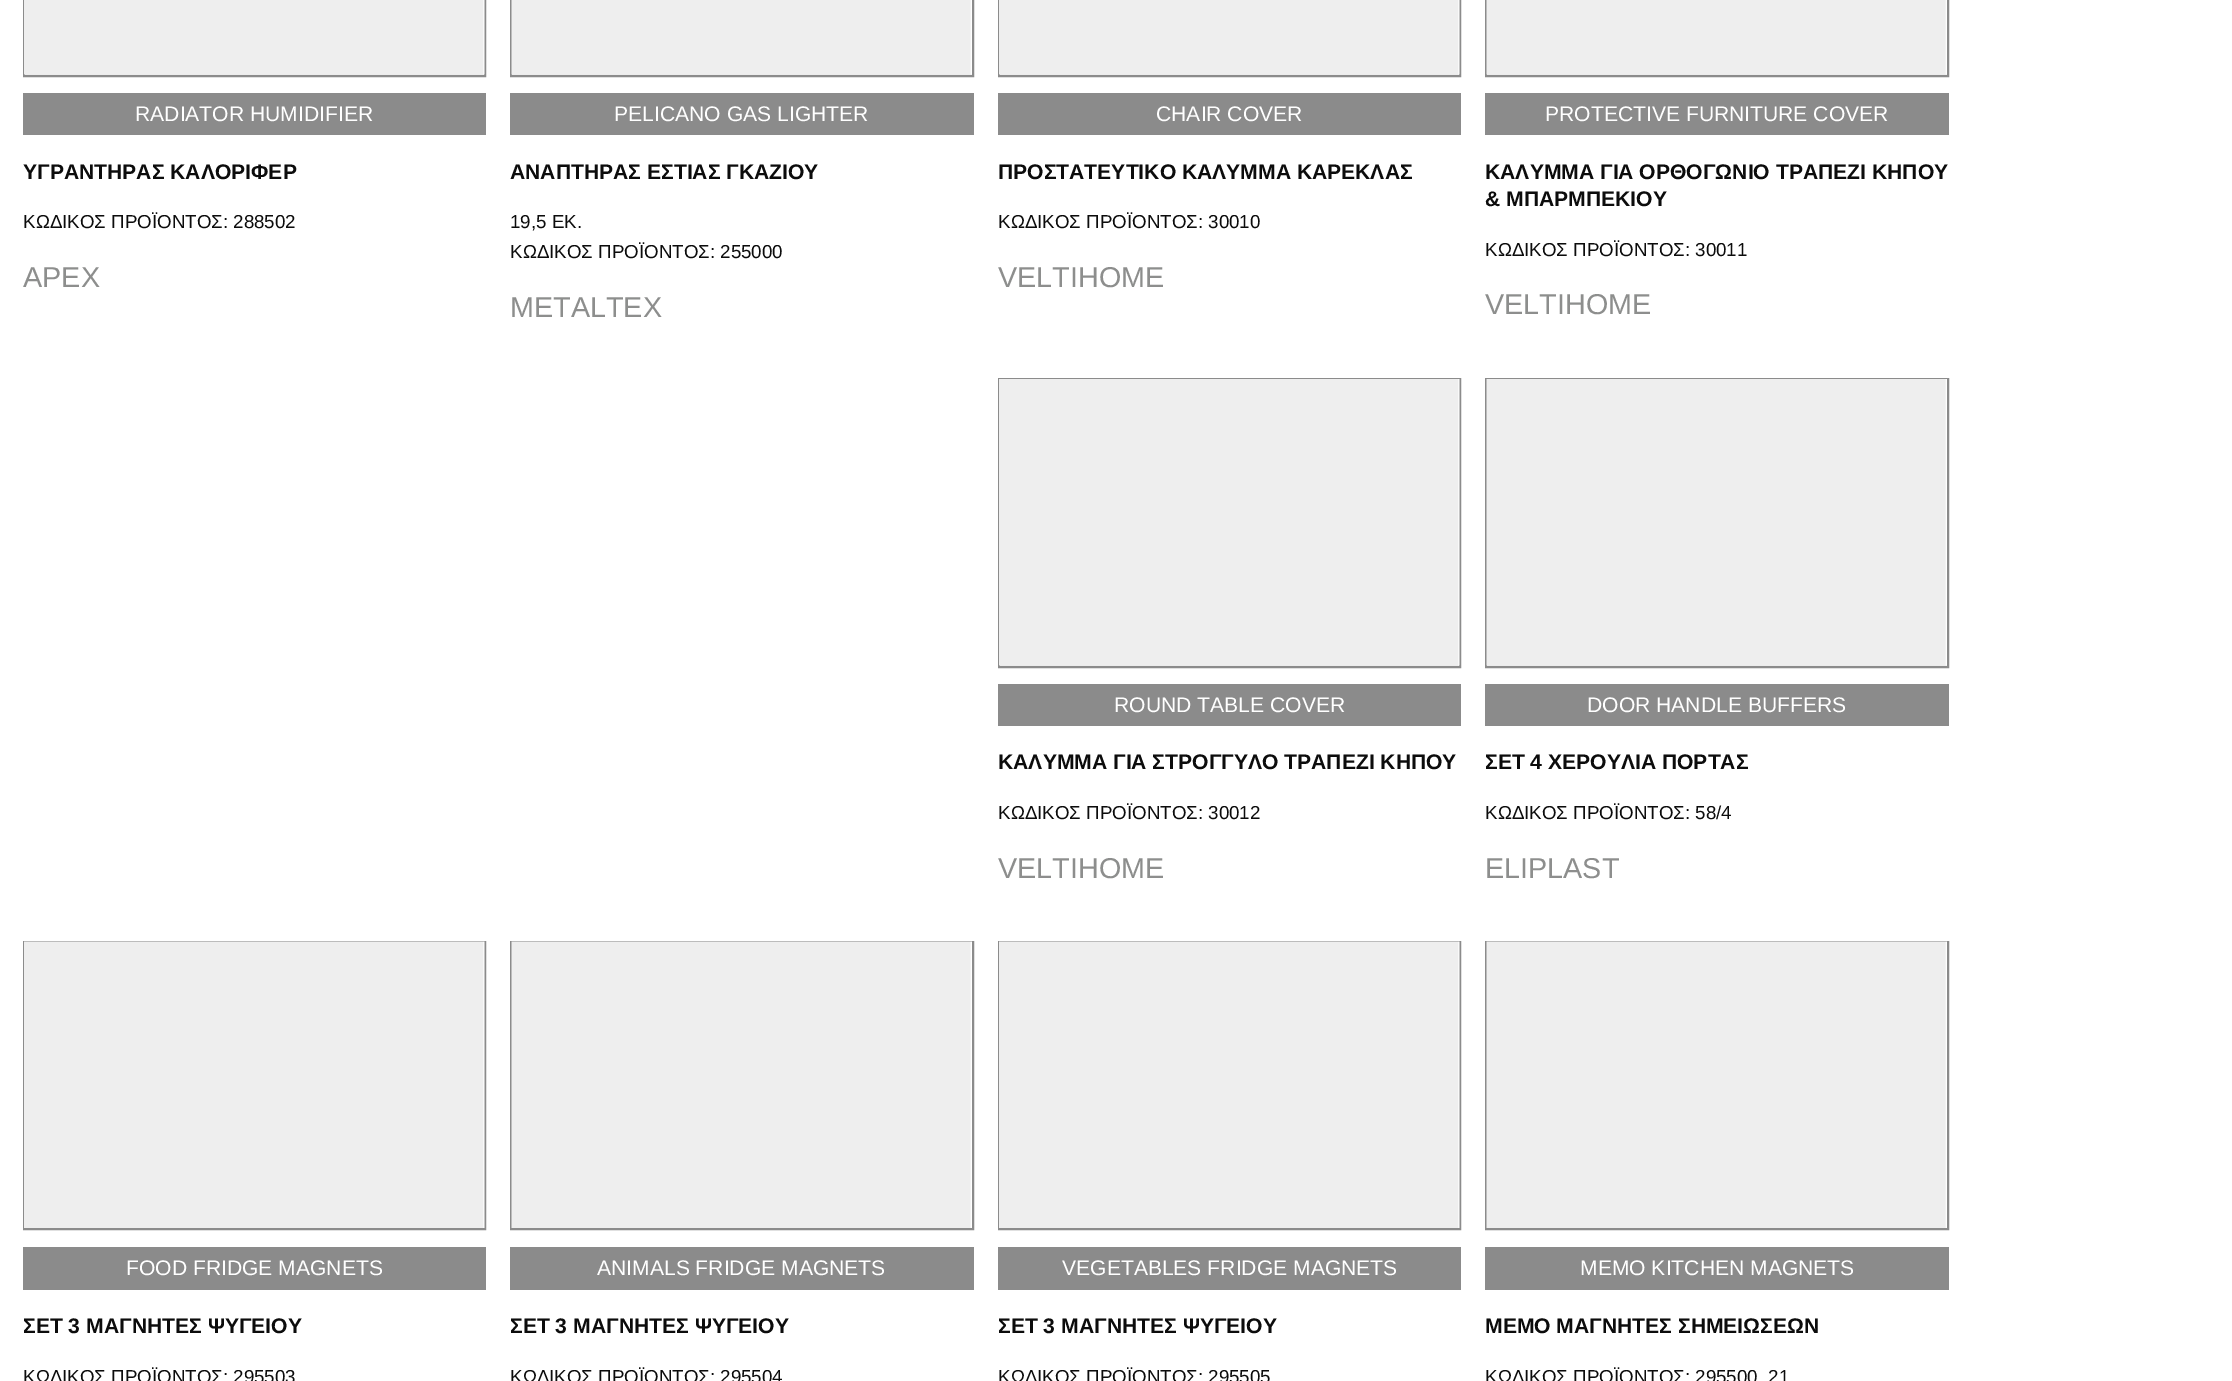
%!PS-Adobe-3.0
%%BoundingBox: 0 0 2232 1381
%%LanguageLevel: 3
%%Pages: 1
%%EndComments
%%BeginProlog
/setink { 3 { 255 div 3 1 roll } repeat setrgbcolor } def
/usefont { [ exch dup neg 0 0 3 -1 roll 0 0 ] selectfont } def
/drawtext { setink usefont moveto show } def
/fillbox { setink rectfill } def
/drawimage { 5 dict begin { /h /w /y /x /name } { exch def } forall
  gsave x y translate w h scale
  w h 8 [w 0 0 h 0 0] name (r) file false 3 colorimage grestore end } def
%%EndProlog
%%BeginSetup
<< /PageSize [2232 1381] >> setpagedevice
%%EndSetup
%%Page: 1 1
0 1381 translate 1 -1 scale
4 setmiterlimit
0 0 2232 1381 255 255 255 fillbox
25 74 459 1 235 235 235 fillbox
139 139 139 setink
2 setlinewidth
24 -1 461 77 rectstroke
(assets/img1.rgb) 24 0 461 75 drawimage
23 93 463 42 139 139 139 fillbox
(RADIATOR HUMIDIFIER) 135 121 /LiberationSans-Regular 21.1 255 255 255 drawtext
(ΥΓΡΑΝΤΗΡΑΣ ΚΑΛΟΡΙΦΕΡ) 23 179 /LiberationSans-Bold 21.1 12 12 12 drawtext
(ΚΩΔΙΚΟΣ ΠΡΟΪΟΝΤΟΣ: 288502) 23 228 /LiberationSans-Regular 18.75 12 12 12 drawtext
(APEX) 23 287 /LiberationSans-Regular 28.75 141 142 141 drawtext
512 74 460 1 235 235 235 fillbox
139 139 139 setink
511 -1 462 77 rectstroke
(assets/img2.rgb) 511 0 461 75 drawimage
510 93 464 42 139 139 139 fillbox
(PELICANO GAS LIGHTER) 614 121 /LiberationSans-Regular 21.1 255 255 255 drawtext
(ΑΝΑΠΤΗΡΑΣ ΕΣΤΙΑΣ ΓΚΑΖΙΟΥ) 510 179 /LiberationSans-Bold 21.1 12 12 12 drawtext
(19,5 ΕΚ.) 510 228 /LiberationSans-Regular 18.75 12 12 12 drawtext
(ΚΩΔΙΚΟΣ ΠΡΟΪΟΝΤΟΣ: 255000) 510 258 /LiberationSans-Regular 18.75 12 12 12 drawtext
(METALTEX) 510 317 /LiberationSans-Regular 28.75 141 142 141 drawtext
1000 74 459 1 235 235 235 fillbox
139 139 139 setink
999 -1 461 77 rectstroke
(assets/img1.rgb) 999 0 461 75 drawimage
998 93 463 42 139 139 139 fillbox
(CHAIR COVER) 1156 121 /LiberationSans-Regular 21.1 255 255 255 drawtext
(ΠΡΟΣΤΑΤΕΥΤΙΚΟ ΚΑΛΥΜΜΑ ΚΑΡΕΚΛΑΣ) 998 179 /LiberationSans-Bold 21.1 12 12 12 drawtext
(ΚΩΔΙΚΟΣ ΠΡΟΪΟΝΤΟΣ: 30010) 998 228 /LiberationSans-Regular 18.75 12 12 12 drawtext
(VELTIHOME) 998 287 /LiberationSans-Regular 28.75 141 142 141 drawtext
1487 74 460 1 235 235 235 fillbox
139 139 139 setink
1486 -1 462 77 rectstroke
(assets/img2.rgb) 1486 0 461 75 drawimage
1485 93 464 42 139 139 139 fillbox
(PROTECTIVE FURNITURE COVER) 1545 121 /LiberationSans-Regular 21.1 255 255 255 drawtext
(ΚΑΛΥΜΜΑ ΓΙΑ ΟΡΘΟΓΩΝΙΟ ΤΡΑΠΕΖΙ ΚΗΠΟΥ) 1485 179 /LiberationSans-Bold 21.1 12 12 12 drawtext
(& ΜΠΑΡΜΠΕΚΙΟΥ) 1485 206 /LiberationSans-Bold 21.1 12 12 12 drawtext
(ΚΩΔΙΚΟΣ ΠΡΟΪΟΝΤΟΣ: 30011) 1485 256 /LiberationSans-Regular 18.75 12 12 12 drawtext
(VELTIHOME) 1485 314 /LiberationSans-Regular 28.75 141 142 141 drawtext
1000 665 459 1 235 235 235 fillbox
139 139 139 setink
999 379 461 288 rectstroke
(assets/img3.rgb) 999 379 461 287 drawimage
998 684 463 42 139 139 139 fillbox
(ROUND TABLE COVER) 1114 712 /LiberationSans-Regular 21.1 255 255 255 drawtext
(ΚΑΛΥΜΜΑ ΓΙΑ ΣΤΡΟΓΓΥΛΟ ΤΡΑΠΕΖΙ ΚΗΠΟΥ) 998 769 /LiberationSans-Bold 21.1 12 12 12 drawtext
(ΚΩΔΙΚΟΣ ΠΡΟΪΟΝΤΟΣ: 30012) 998 819 /LiberationSans-Regular 18.75 12 12 12 drawtext
(VELTIHOME) 998 878 /LiberationSans-Regular 28.75 141 142 141 drawtext
1487 665 460 1 235 235 235 fillbox
139 139 139 setink
1486 379 462 288 rectstroke
(assets/img4.rgb) 1486 379 461 287 drawimage
1485 684 464 42 139 139 139 fillbox
(DOOR HANDLE BUFFERS) 1587 712 /LiberationSans-Regular 21.1 255 255 255 drawtext
(ΣΕΤ 4 ΧΕΡΟΥΛΙΑ ΠΟΡΤΑΣ) 1485 769 /LiberationSans-Bold 21.1 12 12 12 drawtext
(ΚΩΔΙΚΟΣ ΠΡΟΪΟΝΤΟΣ: 58/4) 1485 819 /LiberationSans-Regular 18.75 12 12 12 drawtext
(ELIPLAST) 1485 878 /LiberationSans-Regular 28.75 141 142 141 drawtext
139 139 139 setink
24 942 461 287 rectstroke
(assets/img5.rgb) 24 941 461 287 drawimage
23 1247 463 43 139 139 139 fillbox
(FOOD FRIDGE MAGNETS) 126 1275 /LiberationSans-Regular 21.1 255 255 255 drawtext
(ΣΕΤ 3 ΜΑΓΝΗΤΕΣ ΨΥΓΕΙΟΥ) 23 1333 /LiberationSans-Bold 21.1 12 12 12 drawtext
(ΚΩΔΙΚΟΣ ΠΡΟΪΟΝΤΟΣ: 295503) 23 1383 /LiberationSans-Regular 18.75 12 12 12 drawtext
139 139 139 setink
511 942 462 287 rectstroke
(assets/img6.rgb) 511 941 461 287 drawimage
510 1247 464 43 139 139 139 fillbox
(ANIMALS FRIDGE MAGNETS) 597 1275 /LiberationSans-Regular 21.1 255 255 255 drawtext
(ΣΕΤ 3 ΜΑΓΝΗΤΕΣ ΨΥΓΕΙΟΥ) 510 1333 /LiberationSans-Bold 21.1 12 12 12 drawtext
(ΚΩΔΙΚΟΣ ΠΡΟΪΟΝΤΟΣ: 295504) 510 1383 /LiberationSans-Regular 18.75 12 12 12 drawtext
139 139 139 setink
999 942 461 287 rectstroke
(assets/img5.rgb) 999 941 461 287 drawimage
998 1247 463 43 139 139 139 fillbox
(VEGETABLES FRIDGE MAGNETS) 1062 1275 /LiberationSans-Regular 21.1 255 255 255 drawtext
(ΣΕΤ 3 ΜΑΓΝΗΤΕΣ ΨΥΓΕΙΟΥ) 998 1333 /LiberationSans-Bold 21.1 12 12 12 drawtext
(ΚΩΔΙΚΟΣ ΠΡΟΪΟΝΤΟΣ: 295505) 998 1383 /LiberationSans-Regular 18.75 12 12 12 drawtext
139 139 139 setink
1486 942 462 287 rectstroke
(assets/img6.rgb) 1486 941 461 287 drawimage
1485 1247 464 43 139 139 139 fillbox
(MEMO KITCHEN MAGNETS) 1580 1275 /LiberationSans-Regular 21.1 255 255 255 drawtext
(ΜΕΜΟ ΜΑΓΝΗΤΕΣ ΣΗΜΕΙΩΣΕΩΝ) 1485 1333 /LiberationSans-Bold 21.1 12 12 12 drawtext
(ΚΩΔΙΚΟΣ ΠΡΟΪΟΝΤΟΣ: 295500_21) 1485 1383 /LiberationSans-Regular 18.75 12 12 12 drawtext
showpage
%%EOF
